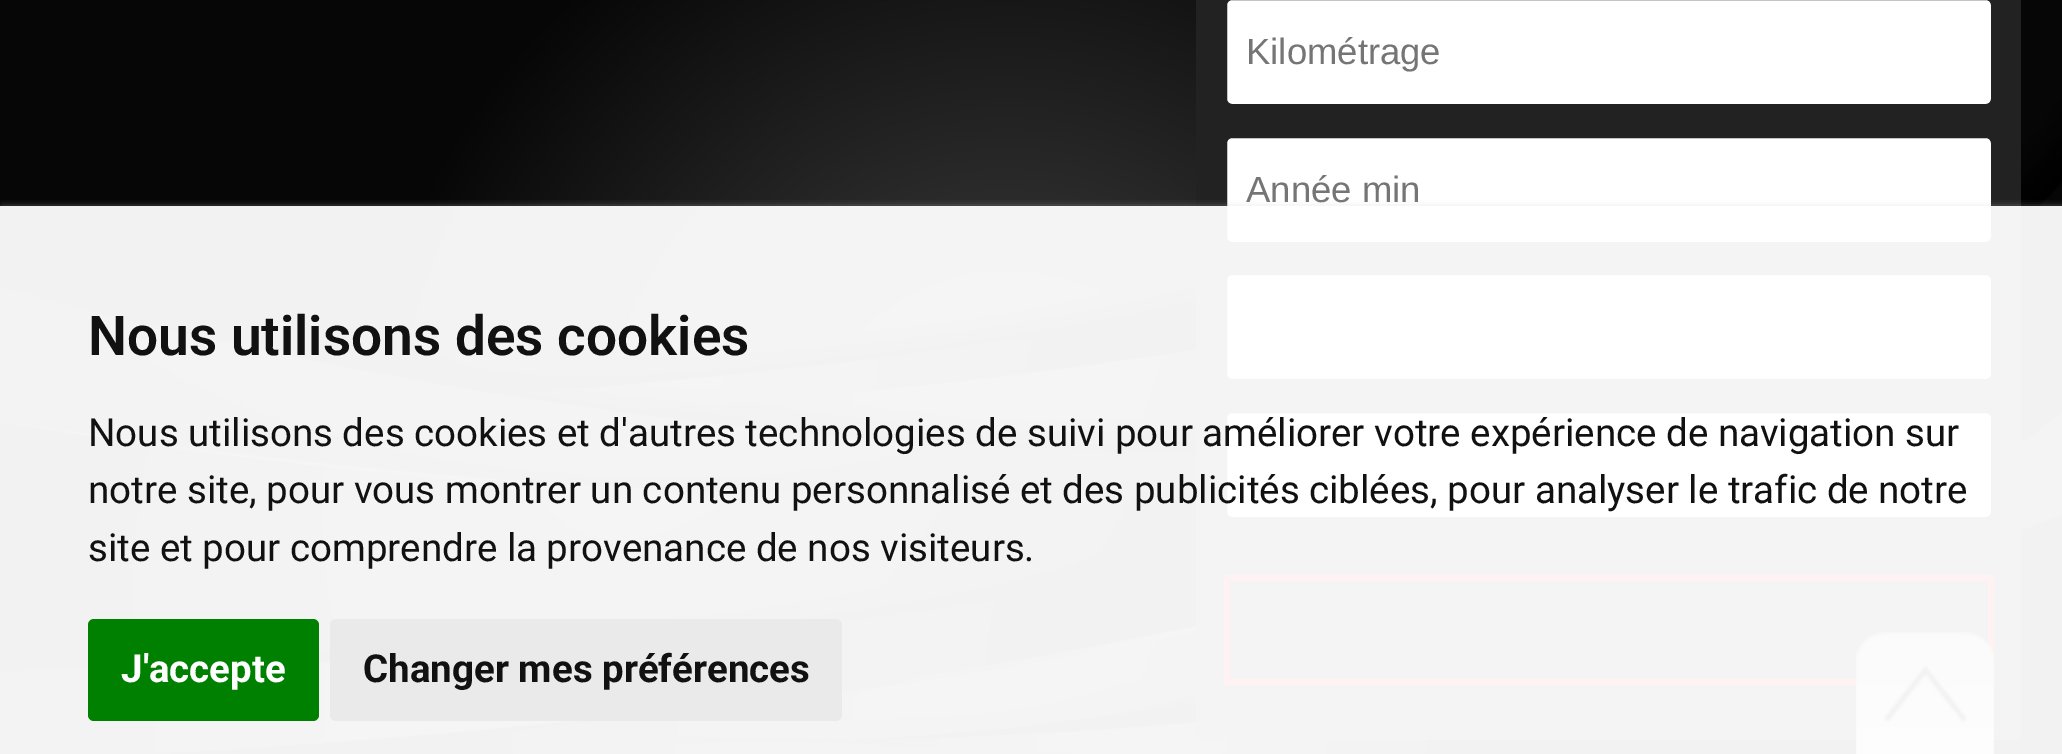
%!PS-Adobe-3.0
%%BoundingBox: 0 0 2062 754
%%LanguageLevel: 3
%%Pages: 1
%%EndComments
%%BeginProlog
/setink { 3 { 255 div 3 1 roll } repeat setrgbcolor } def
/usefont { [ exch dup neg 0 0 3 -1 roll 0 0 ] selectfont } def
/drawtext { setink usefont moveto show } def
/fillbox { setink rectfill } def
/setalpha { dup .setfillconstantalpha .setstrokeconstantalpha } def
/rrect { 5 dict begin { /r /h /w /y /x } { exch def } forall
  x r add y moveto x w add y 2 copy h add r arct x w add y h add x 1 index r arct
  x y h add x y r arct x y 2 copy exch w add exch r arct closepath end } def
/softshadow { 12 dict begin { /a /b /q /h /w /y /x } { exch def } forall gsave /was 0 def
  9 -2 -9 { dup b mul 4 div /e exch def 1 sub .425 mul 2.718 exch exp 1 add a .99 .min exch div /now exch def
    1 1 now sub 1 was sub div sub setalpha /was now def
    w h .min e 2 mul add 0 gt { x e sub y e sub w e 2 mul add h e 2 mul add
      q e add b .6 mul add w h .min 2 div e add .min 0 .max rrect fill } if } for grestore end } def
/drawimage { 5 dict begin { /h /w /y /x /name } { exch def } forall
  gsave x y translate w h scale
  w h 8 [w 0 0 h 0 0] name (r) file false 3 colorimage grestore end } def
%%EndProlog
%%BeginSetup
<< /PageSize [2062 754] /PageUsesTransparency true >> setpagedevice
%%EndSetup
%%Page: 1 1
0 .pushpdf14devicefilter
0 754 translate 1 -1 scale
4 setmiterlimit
0 0 2062 754 255 255 255 fillbox
(assets/img1.rgb) 0 0 2062 754 drawimage
34 34 34 setink
1196 -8 825 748 8 rrect fill
255 255 255 setink
1225.5 -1.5 767 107 6.5 rrect gsave fill grestore
34 34 34 setink
3 setlinewidth
stroke
(Kilométrage) 1246 64 /LiberationSans-Regular 36.5 117 117 117 drawtext
255 255 255 setink
1225.5 136.5 767 107 6.5 rrect gsave fill grestore
34 34 34 setink
stroke
(Année min) 1246 202 /LiberationSans-Regular 36.5 117 117 117 drawtext
255 255 255 setink
1225.5 273.5 767 107 6.5 rrect gsave fill grestore
34 34 34 setink
stroke
255 255 255 setink
1225.5 411.5 767 107 6.5 rrect gsave fill grestore
34 34 34 setink
stroke
227 6 19 setink
6 setlinewidth
1227 578 764 104 rectstroke
(assets/img2.rgb) 1856 632 138 122 drawimage
gsave
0 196 moveto 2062 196 lineto 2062 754 lineto 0 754 lineto closepath 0 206 moveto 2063 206 lineto 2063 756 lineto 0 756 lineto closepath eoclip newpath
204 204 204 setink
3 209 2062 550 0 4 1 softshadow
grestore
0.95 setalpha
0 206 2062 548 255 255 255 fillbox
1 setalpha
(Nous utilisons des cookies) 88 355 /Roboto-SemiBold 55 17 17 17 drawtext
(Nous utilisons des cookies et d'autres technologies de suivi pour améliorer votre expérience de navigation sur) 88 446 /Roboto-Regular 38.5 17 17 17 drawtext
(notre site, pour vous montrer un contenu personnalisé et des publicités ciblées, pour analyser le trafic de notre) 88 503 /Roboto-Regular 38.5 17 17 17 drawtext
(site et pour comprendre la provenance de nos visiteurs.) 88 561 /Roboto-Regular 38.5 17 17 17 drawtext
0 128 0 setink
88 619 231 102 6 rrect fill
(J'accepte) 121 682 /Roboto-Bold 38.5 255 255 255 drawtext
234 234 234 setink
330 619 512 102 6 rrect fill
(Changer mes préférences) 363 682 /Roboto-Bold 38.5 17 17 17 drawtext
.poppdf14devicefilter showpage
%%EOF
